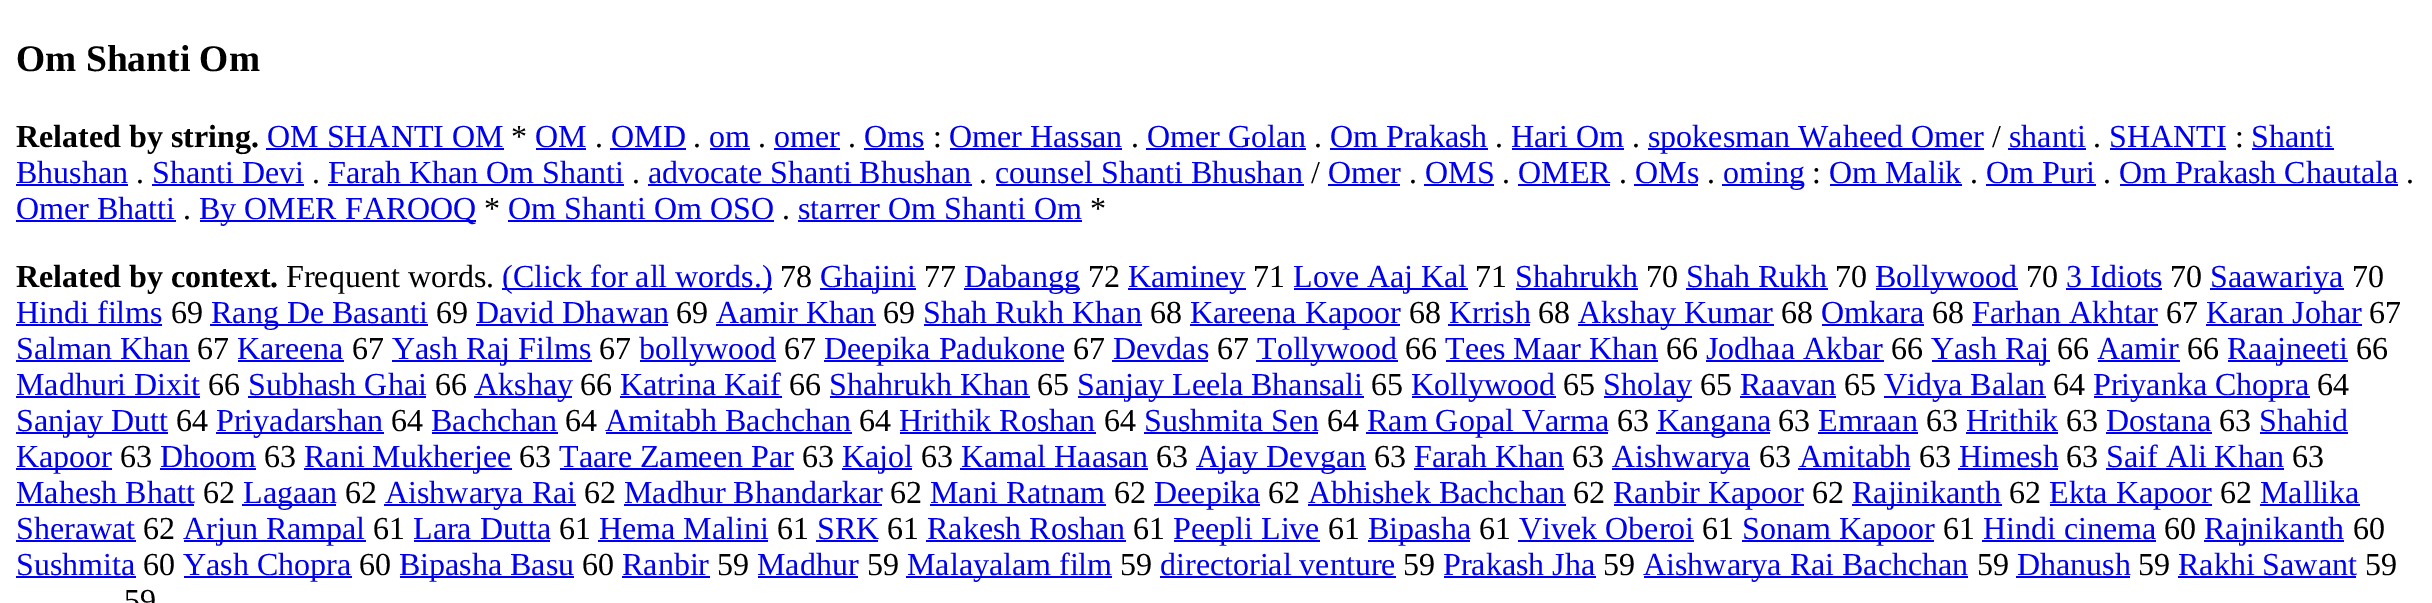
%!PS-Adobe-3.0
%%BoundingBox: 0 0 2432 603
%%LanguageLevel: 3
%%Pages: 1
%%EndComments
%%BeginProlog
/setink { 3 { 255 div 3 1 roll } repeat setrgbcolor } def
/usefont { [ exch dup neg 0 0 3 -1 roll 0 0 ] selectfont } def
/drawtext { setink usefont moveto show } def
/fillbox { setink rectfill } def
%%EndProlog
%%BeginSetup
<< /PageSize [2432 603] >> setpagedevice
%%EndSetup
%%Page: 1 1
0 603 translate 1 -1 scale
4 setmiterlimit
0 0 2432 603 255 255 255 fillbox
(Om Shanti Om) 16 71 /LiberationSerif-Bold 37.5 0 0 0 drawtext
(Related by string.) 16 147 /LiberationSerif-Bold 32 0 0 0 drawtext
(OM SHANTI OM) 267 147 /LiberationSerif-Regular 32 0 0 238 drawtext
266 148 238 2 0 0 238 fillbox
(*) 511 147 /LiberationSerif-Regular 32 0 0 0 drawtext
(OM) 535 147 /LiberationSerif-Regular 32 0 0 238 drawtext
536 148 50 2 0 0 238 fillbox
(.) 595 147 /LiberationSerif-Regular 32 0 0 0 drawtext
(OMD) 611 147 /LiberationSerif-Regular 32 0 0 238 drawtext
610 148 76 2 0 0 238 fillbox
(.) 693 147 /LiberationSerif-Regular 32 0 0 0 drawtext
(om) 709 147 /LiberationSerif-Regular 32 0 0 238 drawtext
710 148 40 2 0 0 238 fillbox
(.) 758 147 /LiberationSerif-Regular 32 0 0 0 drawtext
(omer) 774 147 /LiberationSerif-Regular 32 0 0 238 drawtext
774 148 66 2 0 0 238 fillbox
(.) 848 147 /LiberationSerif-Regular 32 0 0 0 drawtext
(Oms) 864 147 /LiberationSerif-Regular 32 0 0 238 drawtext
864 148 60 2 0 0 238 fillbox
(:) 933 147 /LiberationSerif-Regular 32 0 0 0 drawtext
(Omer Hassan) 949 147 /LiberationSerif-Regular 32 0 0 238 drawtext
950 148 172 2 0 0 238 fillbox
(.) 1131 147 /LiberationSerif-Regular 32 0 0 0 drawtext
(Omer Golan) 1147 147 /LiberationSerif-Regular 32 0 0 238 drawtext
1146 148 160 2 0 0 238 fillbox
(.) 1314 147 /LiberationSerif-Regular 32 0 0 0 drawtext
(Om Prakash) 1330 147 /LiberationSerif-Regular 32 0 0 238 drawtext
1330 148 158 2 0 0 238 fillbox
(.) 1495 147 /LiberationSerif-Regular 32 0 0 0 drawtext
(Hari Om) 1511 147 /LiberationSerif-Regular 32 0 0 238 drawtext
1512 148 112 2 0 0 238 fillbox
(.) 1632 147 /LiberationSerif-Regular 32 0 0 0 drawtext
1648 148 336 2 0 0 238 fillbox
(spokesman Waheed Omer) 1648 147 /LiberationSerif-Regular 32 0 0 238 drawtext
(/) 1992 147 /LiberationSerif-Regular 32 0 0 0 drawtext
(shanti) 2009 147 /LiberationSerif-Regular 32 0 0 238 drawtext
2008 148 78 2 0 0 238 fillbox
(.) 2093 147 /LiberationSerif-Regular 32 0 0 0 drawtext
(SHANTI) 2109 147 /LiberationSerif-Regular 32 0 0 238 drawtext
2110 148 116 2 0 0 238 fillbox
(:) 2235 147 /LiberationSerif-Regular 32 0 0 0 drawtext
(Shanti) 2251 147 /LiberationSerif-Regular 32 0 0 238 drawtext
2252 148 82 2 0 0 238 fillbox
(Bhushan) 16 183 /LiberationSerif-Regular 32 0 0 238 drawtext
16 184 112 2 0 0 238 fillbox
(.) 136 183 /LiberationSerif-Regular 32 0 0 0 drawtext
(Shanti Devi) 152 183 /LiberationSerif-Regular 32 0 0 238 drawtext
152 184 152 2 0 0 238 fillbox
(.) 312 183 /LiberationSerif-Regular 32 0 0 0 drawtext
(Farah Khan Om Shanti) 328 183 /LiberationSerif-Regular 32 0 0 238 drawtext
328 184 296 2 0 0 238 fillbox
(.) 632 183 /LiberationSerif-Regular 32 0 0 0 drawtext
(advocate Shanti Bhushan) 648 183 /LiberationSerif-Regular 32 0 0 238 drawtext
648 184 324 2 0 0 238 fillbox
(.) 979 183 /LiberationSerif-Regular 32 0 0 0 drawtext
(counsel Shanti Bhushan) 995 183 /LiberationSerif-Regular 32 0 0 238 drawtext
996 184 308 2 0 0 238 fillbox
(/) 1311 183 /LiberationSerif-Regular 32 0 0 0 drawtext
(Omer) 1328 183 /LiberationSerif-Regular 32 0 0 238 drawtext
1328 184 72 2 0 0 238 fillbox
(.) 1409 183 /LiberationSerif-Regular 32 0 0 0 drawtext
(OMS) 1425 183 /LiberationSerif-Regular 32 0 0 238 drawtext
1424 184 70 2 0 0 238 fillbox
(.) 1502 183 /LiberationSerif-Regular 32 0 0 0 drawtext
(OMER) 1518 183 /LiberationSerif-Regular 32 0 0 238 drawtext
1518 184 92 2 0 0 238 fillbox
(.) 1619 183 /LiberationSerif-Regular 32 0 0 0 drawtext
(OMs) 1635 183 /LiberationSerif-Regular 32 0 0 238 drawtext
1634 184 64 2 0 0 238 fillbox
(.) 1707 183 /LiberationSerif-Regular 32 0 0 0 drawtext
1722 184 82 2 0 0 238 fillbox
(oming) 1723 183 /LiberationSerif-Regular 32 0 0 238 drawtext
(:) 1812 183 /LiberationSerif-Regular 32 0 0 0 drawtext
(Om Malik) 1829 183 /LiberationSerif-Regular 32 0 0 238 drawtext
1830 184 132 2 0 0 238 fillbox
(.) 1970 183 /LiberationSerif-Regular 32 0 0 0 drawtext
(Om Puri) 1986 183 /LiberationSerif-Regular 32 0 0 238 drawtext
1986 184 110 2 0 0 238 fillbox
(.) 2103 183 /LiberationSerif-Regular 32 0 0 0 drawtext
(Om Prakash Chautala) 2119 183 /LiberationSerif-Regular 32 0 0 238 drawtext
2120 184 278 2 0 0 238 fillbox
(.) 2406 183 /LiberationSerif-Regular 32 0 0 0 drawtext
(Omer Bhatti) 16 219 /LiberationSerif-Regular 32 0 0 238 drawtext
16 220 160 2 0 0 238 fillbox
200 220 276 2 0 0 238 fillbox
(By OMER FAROOQ) 199 219 /LiberationSerif-Regular 32 0 0 238 drawtext
(*) 484 219 /LiberationSerif-Regular 32 0 0 0 drawtext
(Om Shanti Om OSO) 508 219 /LiberationSerif-Regular 32 0 0 238 drawtext
508 220 266 2 0 0 238 fillbox
(starrer Om Shanti Om) 798 219 /LiberationSerif-Regular 32 0 0 238 drawtext
798 220 284 2 0 0 238 fillbox
(*) 1090 219 /LiberationSerif-Regular 32 0 0 0 drawtext
(.) 183 219 /LiberationSerif-Regular 32 0 0 0 drawtext
(.) 782 219 /LiberationSerif-Regular 32 0 0 0 drawtext
(Related by context.) 16 287 /LiberationSerif-Bold 32 0 0 0 drawtext
(Frequent words.) 286 287 /LiberationSerif-Regular 32 0 0 0 drawtext
502 288 270 2 0 0 238 fillbox
(\(Click for all words.\)) 502 287 /LiberationSerif-Regular 32 0 0 238 drawtext
(78) 780 287 /LiberationSerif-Regular 32 0 0 0 drawtext
820 288 96 2 0 0 238 fillbox
(Ghajini) 820 287 /LiberationSerif-Regular 32 0 0 238 drawtext
(77) 924 287 /LiberationSerif-Regular 32 0 0 0 drawtext
964 288 116 2 0 0 238 fillbox
(Dabangg) 964 287 /LiberationSerif-Regular 32 0 0 238 drawtext
(72) 1088 287 /LiberationSerif-Regular 32 0 0 0 drawtext
1128 288 118 2 0 0 238 fillbox
(Kaminey) 1128 287 /LiberationSerif-Regular 32 0 0 238 drawtext
(71) 1253 287 /LiberationSerif-Regular 32 0 0 0 drawtext
1294 288 174 2 0 0 238 fillbox
(Love Aaj Kal) 1293 287 /LiberationSerif-Regular 32 0 0 238 drawtext
(71) 1475 287 /LiberationSerif-Regular 32 0 0 0 drawtext
(Shahrukh) 1515 287 /LiberationSerif-Regular 32 0 0 238 drawtext
1516 288 122 2 0 0 238 fillbox
(70) 1646 287 /LiberationSerif-Regular 32 0 0 0 drawtext
(Shah Rukh) 1686 287 /LiberationSerif-Regular 32 0 0 238 drawtext
1686 288 142 2 0 0 238 fillbox
(70) 1835 287 /LiberationSerif-Regular 32 0 0 0 drawtext
1876 288 142 2 0 0 238 fillbox
(Bollywood) 1875 287 /LiberationSerif-Regular 32 0 0 238 drawtext
(70) 2026 287 /LiberationSerif-Regular 32 0 0 0 drawtext
(3 Idiots) 2066 287 /LiberationSerif-Regular 32 0 0 238 drawtext
2066 288 96 2 0 0 238 fillbox
(70) 2170 287 /LiberationSerif-Regular 32 0 0 0 drawtext
2210 288 134 2 0 0 238 fillbox
(Saawariya) 2210 287 /LiberationSerif-Regular 32 0 0 238 drawtext
(70) 2352 287 /LiberationSerif-Regular 32 0 0 0 drawtext
(Hindi films) 16 323 /LiberationSerif-Regular 32 0 0 238 drawtext
16 324 146 2 0 0 238 fillbox
(69) 171 323 /LiberationSerif-Regular 32 0 0 0 drawtext
210 324 218 2 0 0 238 fillbox
(Rang De Basanti) 211 323 /LiberationSerif-Regular 32 0 0 238 drawtext
(69) 436 323 /LiberationSerif-Regular 32 0 0 0 drawtext
(David Dhawan) 476 323 /LiberationSerif-Regular 32 0 0 238 drawtext
476 324 192 2 0 0 238 fillbox
(69) 676 323 /LiberationSerif-Regular 32 0 0 0 drawtext
(Aamir Khan) 716 323 /LiberationSerif-Regular 32 0 0 238 drawtext
716 324 160 2 0 0 238 fillbox
(69) 883 323 /LiberationSerif-Regular 32 0 0 0 drawtext
(Shah Rukh Khan) 923 323 /LiberationSerif-Regular 32 0 0 238 drawtext
924 324 218 2 0 0 238 fillbox
(68) 1150 323 /LiberationSerif-Regular 32 0 0 0 drawtext
1190 324 210 2 0 0 238 fillbox
(Kareena Kapoor) 1190 323 /LiberationSerif-Regular 32 0 0 238 drawtext
(68) 1409 323 /LiberationSerif-Regular 32 0 0 0 drawtext
(Krrish) 1449 323 /LiberationSerif-Regular 32 0 0 238 drawtext
1448 324 82 2 0 0 238 fillbox
(68) 1538 323 /LiberationSerif-Regular 32 0 0 0 drawtext
1578 324 196 2 0 0 238 fillbox
(Akshay Kumar) 1578 323 /LiberationSerif-Regular 32 0 0 238 drawtext
(68) 1781 323 /LiberationSerif-Regular 32 0 0 0 drawtext
(Omkara) 1821 323 /LiberationSerif-Regular 32 0 0 238 drawtext
1822 324 102 2 0 0 238 fillbox
(68) 1932 323 /LiberationSerif-Regular 32 0 0 0 drawtext
(Farhan Akhtar) 1972 323 /LiberationSerif-Regular 32 0 0 238 drawtext
1972 324 186 2 0 0 238 fillbox
(67) 2166 323 /LiberationSerif-Regular 32 0 0 0 drawtext
(Karan Johar) 2206 323 /LiberationSerif-Regular 32 0 0 238 drawtext
2206 324 156 2 0 0 238 fillbox
(67) 2369 323 /LiberationSerif-Regular 32 0 0 0 drawtext
(Salman Khan) 16 359 /LiberationSerif-Regular 32 0 0 238 drawtext
16 360 174 2 0 0 238 fillbox
(67) 197 359 /LiberationSerif-Regular 32 0 0 0 drawtext
(Kareena) 237 359 /LiberationSerif-Regular 32 0 0 238 drawtext
238 360 106 2 0 0 238 fillbox
(67) 352 359 /LiberationSerif-Regular 32 0 0 0 drawtext
392 360 200 2 0 0 238 fillbox
(Yash Raj Films) 392 359 /LiberationSerif-Regular 32 0 0 238 drawtext
(67) 599 359 /LiberationSerif-Regular 32 0 0 0 drawtext
640 360 136 2 0 0 238 fillbox
(bollywood) 639 359 /LiberationSerif-Regular 32 0 0 238 drawtext
(67) 784 359 /LiberationSerif-Regular 32 0 0 0 drawtext
824 360 240 2 0 0 238 fillbox
(Deepika Padukone) 824 359 /LiberationSerif-Regular 32 0 0 238 drawtext
(67) 1073 359 /LiberationSerif-Regular 32 0 0 0 drawtext
(Devdas) 1113 359 /LiberationSerif-Regular 32 0 0 238 drawtext
1112 360 96 2 0 0 238 fillbox
(67) 1217 359 /LiberationSerif-Regular 32 0 0 0 drawtext
1256 360 142 2 0 0 238 fillbox
(Tollywood) 1257 359 /LiberationSerif-Regular 32 0 0 238 drawtext
(66) 1405 359 /LiberationSerif-Regular 32 0 0 0 drawtext
(Tees Maar Khan) 1445 359 /LiberationSerif-Regular 32 0 0 238 drawtext
1446 360 212 2 0 0 238 fillbox
(66) 1666 359 /LiberationSerif-Regular 32 0 0 0 drawtext
(Jodhaa Akbar) 1706 359 /LiberationSerif-Regular 32 0 0 238 drawtext
1706 360 178 2 0 0 238 fillbox
(66) 1891 359 /LiberationSerif-Regular 32 0 0 0 drawtext
1932 360 118 2 0 0 238 fillbox
(Yash Raj) 1931 359 /LiberationSerif-Regular 32 0 0 238 drawtext
(66) 2057 359 /LiberationSerif-Regular 32 0 0 0 drawtext
(Aamir) 2097 359 /LiberationSerif-Regular 32 0 0 238 drawtext
2098 360 82 2 0 0 238 fillbox
(66) 2187 359 /LiberationSerif-Regular 32 0 0 0 drawtext
2228 360 120 2 0 0 238 fillbox
(Raajneeti) 2227 359 /LiberationSerif-Regular 32 0 0 238 drawtext
(66) 2356 359 /LiberationSerif-Regular 32 0 0 0 drawtext
(Madhuri Dixit) 16 395 /LiberationSerif-Regular 32 0 0 238 drawtext
16 396 184 2 0 0 238 fillbox
(66) 208 395 /LiberationSerif-Regular 32 0 0 0 drawtext
(Subhash Ghai) 248 395 /LiberationSerif-Regular 32 0 0 238 drawtext
248 396 178 2 0 0 238 fillbox
(66) 435 395 /LiberationSerif-Regular 32 0 0 0 drawtext
474 396 98 2 0 0 238 fillbox
(Akshay) 475 395 /LiberationSerif-Regular 32 0 0 238 drawtext
(66) 580 395 /LiberationSerif-Regular 32 0 0 0 drawtext
(Katrina Kaif) 620 395 /LiberationSerif-Regular 32 0 0 238 drawtext
620 396 162 2 0 0 238 fillbox
(66) 789 395 /LiberationSerif-Regular 32 0 0 0 drawtext
(Shahrukh Khan) 829 395 /LiberationSerif-Regular 32 0 0 238 drawtext
830 396 200 2 0 0 238 fillbox
(65) 1037 395 /LiberationSerif-Regular 32 0 0 0 drawtext
1078 396 286 2 0 0 238 fillbox
(Sanjay Leela Bhansali) 1077 395 /LiberationSerif-Regular 32 0 0 238 drawtext
(65) 1371 395 /LiberationSerif-Regular 32 0 0 0 drawtext
1412 396 144 2 0 0 238 fillbox
(Kollywood) 1411 395 /LiberationSerif-Regular 32 0 0 238 drawtext
(65) 1563 395 /LiberationSerif-Regular 32 0 0 0 drawtext
1604 396 88 2 0 0 238 fillbox
(Sholay) 1603 395 /LiberationSerif-Regular 32 0 0 238 drawtext
(65) 1700 395 /LiberationSerif-Regular 32 0 0 0 drawtext
(Raavan) 1740 395 /LiberationSerif-Regular 32 0 0 238 drawtext
1740 396 96 2 0 0 238 fillbox
(65) 1844 395 /LiberationSerif-Regular 32 0 0 0 drawtext
1884 396 162 2 0 0 238 fillbox
(Vidya Balan) 1884 395 /LiberationSerif-Regular 32 0 0 238 drawtext
(64) 2053 395 /LiberationSerif-Regular 32 0 0 0 drawtext
2094 396 216 2 0 0 238 fillbox
(Priyanka Chopra) 2093 395 /LiberationSerif-Regular 32 0 0 238 drawtext
(64) 2317 395 /LiberationSerif-Regular 32 0 0 0 drawtext
16 432 152 2 0 0 238 fillbox
(Sanjay Dutt) 16 431 /LiberationSerif-Regular 32 0 0 238 drawtext
(64) 176 431 /LiberationSerif-Regular 32 0 0 0 drawtext
216 432 168 2 0 0 238 fillbox
(Priyadarshan) 216 431 /LiberationSerif-Regular 32 0 0 238 drawtext
(64) 391 431 /LiberationSerif-Regular 32 0 0 0 drawtext
(Bachchan) 431 431 /LiberationSerif-Regular 32 0 0 238 drawtext
432 432 126 2 0 0 238 fillbox
(64) 565 431 /LiberationSerif-Regular 32 0 0 0 drawtext
(Amitabh Bachchan) 605 431 /LiberationSerif-Regular 32 0 0 238 drawtext
606 432 246 2 0 0 238 fillbox
(64) 859 431 /LiberationSerif-Regular 32 0 0 0 drawtext
(Hrithik Roshan) 899 431 /LiberationSerif-Regular 32 0 0 238 drawtext
900 432 196 2 0 0 238 fillbox
(64) 1104 431 /LiberationSerif-Regular 32 0 0 0 drawtext
(Sushmita Sen) 1144 431 /LiberationSerif-Regular 32 0 0 238 drawtext
1144 432 174 2 0 0 238 fillbox
(64) 1327 431 /LiberationSerif-Regular 32 0 0 0 drawtext
1366 432 242 2 0 0 238 fillbox
(Ram Gopal Varma) 1367 431 /LiberationSerif-Regular 32 0 0 238 drawtext
(63) 1617 431 /LiberationSerif-Regular 32 0 0 0 drawtext
1656 432 114 2 0 0 238 fillbox
(Kangana) 1657 431 /LiberationSerif-Regular 32 0 0 238 drawtext
(63) 1778 431 /LiberationSerif-Regular 32 0 0 0 drawtext
(Emraan) 1818 431 /LiberationSerif-Regular 32 0 0 238 drawtext
1818 432 100 2 0 0 238 fillbox
(63) 1926 431 /LiberationSerif-Regular 32 0 0 0 drawtext
(Hrithik) 1966 431 /LiberationSerif-Regular 32 0 0 238 drawtext
1966 432 92 2 0 0 238 fillbox
(63) 2066 431 /LiberationSerif-Regular 32 0 0 0 drawtext
(Dostana) 2106 431 /LiberationSerif-Regular 32 0 0 238 drawtext
2106 432 106 2 0 0 238 fillbox
(63) 2219 431 /LiberationSerif-Regular 32 0 0 0 drawtext
(Shahid) 2259 431 /LiberationSerif-Regular 32 0 0 238 drawtext
2260 432 88 2 0 0 238 fillbox
16 468 96 2 0 0 238 fillbox
(Kapoor) 16 467 /LiberationSerif-Regular 32 0 0 238 drawtext
(63) 120 467 /LiberationSerif-Regular 32 0 0 0 drawtext
(Dhoom) 160 467 /LiberationSerif-Regular 32 0 0 238 drawtext
160 468 96 2 0 0 238 fillbox
(63) 264 467 /LiberationSerif-Regular 32 0 0 0 drawtext
304 468 208 2 0 0 238 fillbox
(Rani Mukherjee) 304 467 /LiberationSerif-Regular 32 0 0 238 drawtext
(63) 519 467 /LiberationSerif-Regular 32 0 0 0 drawtext
(Taare Zameen Par) 559 467 /LiberationSerif-Regular 32 0 0 238 drawtext
560 468 234 2 0 0 238 fillbox
(63) 802 467 /LiberationSerif-Regular 32 0 0 0 drawtext
842 468 70 2 0 0 238 fillbox
(Kajol) 842 467 /LiberationSerif-Regular 32 0 0 238 drawtext
(63) 921 467 /LiberationSerif-Regular 32 0 0 0 drawtext
(Kamal Haasan) 961 467 /LiberationSerif-Regular 32 0 0 238 drawtext
960 468 188 2 0 0 238 fillbox
(63) 1156 467 /LiberationSerif-Regular 32 0 0 0 drawtext
1196 468 170 2 0 0 238 fillbox
(Ajay Devgan) 1196 467 /LiberationSerif-Regular 32 0 0 238 drawtext
(63) 1374 467 /LiberationSerif-Regular 32 0 0 0 drawtext
(Farah Khan) 1414 467 /LiberationSerif-Regular 32 0 0 238 drawtext
1414 468 150 2 0 0 238 fillbox
(63) 1572 467 /LiberationSerif-Regular 32 0 0 0 drawtext
1612 468 138 2 0 0 238 fillbox
(Aishwarya) 1612 467 /LiberationSerif-Regular 32 0 0 238 drawtext
(63) 1759 467 /LiberationSerif-Regular 32 0 0 0 drawtext
(Amitabh) 1799 467 /LiberationSerif-Regular 32 0 0 238 drawtext
1798 468 112 2 0 0 238 fillbox
(63) 1919 467 /LiberationSerif-Regular 32 0 0 0 drawtext
(Himesh) 1959 467 /LiberationSerif-Regular 32 0 0 238 drawtext
1958 468 100 2 0 0 238 fillbox
(63) 2066 467 /LiberationSerif-Regular 32 0 0 0 drawtext
(Saif Ali Khan) 2106 467 /LiberationSerif-Regular 32 0 0 238 drawtext
2106 468 178 2 0 0 238 fillbox
(63) 2292 467 /LiberationSerif-Regular 32 0 0 0 drawtext
(Mahesh Bhatt) 16 503 /LiberationSerif-Regular 32 0 0 238 drawtext
16 504 178 2 0 0 238 fillbox
(62) 203 503 /LiberationSerif-Regular 32 0 0 0 drawtext
242 504 94 2 0 0 238 fillbox
(Lagaan) 243 503 /LiberationSerif-Regular 32 0 0 238 drawtext
(62) 345 503 /LiberationSerif-Regular 32 0 0 0 drawtext
384 504 192 2 0 0 238 fillbox
(Aishwarya Rai) 385 503 /LiberationSerif-Regular 32 0 0 238 drawtext
(62) 584 503 /LiberationSerif-Regular 32 0 0 0 drawtext
(Madhur Bhandarkar) 624 503 /LiberationSerif-Regular 32 0 0 238 drawtext
624 504 258 2 0 0 238 fillbox
(62) 890 503 /LiberationSerif-Regular 32 0 0 0 drawtext
(Mani Ratnam) 930 503 /LiberationSerif-Regular 32 0 0 238 drawtext
930 504 176 2 0 0 238 fillbox
(62) 1114 503 /LiberationSerif-Regular 32 0 0 0 drawtext
1154 504 106 2 0 0 238 fillbox
(Deepika) 1154 503 /LiberationSerif-Regular 32 0 0 238 drawtext
(62) 1268 503 /LiberationSerif-Regular 32 0 0 0 drawtext
(Abhishek Bachchan) 1308 503 /LiberationSerif-Regular 32 0 0 238 drawtext
1308 504 258 2 0 0 238 fillbox
(62) 1573 503 /LiberationSerif-Regular 32 0 0 0 drawtext
1614 504 190 2 0 0 238 fillbox
(Ranbir Kapoor) 1613 503 /LiberationSerif-Regular 32 0 0 238 drawtext
(62) 1812 503 /LiberationSerif-Regular 32 0 0 0 drawtext
1852 504 150 2 0 0 238 fillbox
(Rajinikanth) 1852 503 /LiberationSerif-Regular 32 0 0 238 drawtext
(62) 2009 503 /LiberationSerif-Regular 32 0 0 0 drawtext
2050 504 162 2 0 0 238 fillbox
(Ekta Kapoor) 2049 503 /LiberationSerif-Regular 32 0 0 238 drawtext
(62) 2220 503 /LiberationSerif-Regular 32 0 0 0 drawtext
(Mallika) 2260 503 /LiberationSerif-Regular 32 0 0 238 drawtext
2260 504 100 2 0 0 238 fillbox
(Sherawat) 16 539 /LiberationSerif-Regular 32 0 0 238 drawtext
16 540 120 2 0 0 238 fillbox
(62) 143 539 /LiberationSerif-Regular 32 0 0 0 drawtext
184 540 182 2 0 0 238 fillbox
(Arjun Rampal) 183 539 /LiberationSerif-Regular 32 0 0 238 drawtext
(61) 373 539 /LiberationSerif-Regular 32 0 0 0 drawtext
(Lara Dutta) 413 539 /LiberationSerif-Regular 32 0 0 238 drawtext
414 540 136 2 0 0 238 fillbox
(61) 559 539 /LiberationSerif-Regular 32 0 0 0 drawtext
(Hema Malini) 599 539 /LiberationSerif-Regular 32 0 0 238 drawtext
598 540 170 2 0 0 238 fillbox
(61) 777 539 /LiberationSerif-Regular 32 0 0 0 drawtext
(SRK) 817 539 /LiberationSerif-Regular 32 0 0 238 drawtext
816 540 62 2 0 0 238 fillbox
(61) 887 539 /LiberationSerif-Regular 32 0 0 0 drawtext
(Rakesh Roshan) 927 539 /LiberationSerif-Regular 32 0 0 238 drawtext
926 540 200 2 0 0 238 fillbox
(61) 1133 539 /LiberationSerif-Regular 32 0 0 0 drawtext
1174 540 146 2 0 0 238 fillbox
(Peepli Live) 1173 539 /LiberationSerif-Regular 32 0 0 238 drawtext
(61) 1328 539 /LiberationSerif-Regular 32 0 0 0 drawtext
1368 540 102 2 0 0 238 fillbox
(Bipasha) 1368 539 /LiberationSerif-Regular 32 0 0 238 drawtext
(61) 1479 539 /LiberationSerif-Regular 32 0 0 0 drawtext
(Vivek Oberoi) 1519 539 /LiberationSerif-Regular 32 0 0 238 drawtext
1518 540 176 2 0 0 238 fillbox
(61) 1702 539 /LiberationSerif-Regular 32 0 0 0 drawtext
1742 540 192 2 0 0 238 fillbox
(Sonam Kapoor) 1742 539 /LiberationSerif-Regular 32 0 0 238 drawtext
(61) 1943 539 /LiberationSerif-Regular 32 0 0 0 drawtext
(Hindi cinema) 1983 539 /LiberationSerif-Regular 32 0 0 238 drawtext
1982 540 174 2 0 0 238 fillbox
(60) 2164 539 /LiberationSerif-Regular 32 0 0 0 drawtext
2204 540 140 2 0 0 238 fillbox
(Rajnikanth) 2204 539 /LiberationSerif-Regular 32 0 0 238 drawtext
(60) 2353 539 /LiberationSerif-Regular 32 0 0 0 drawtext
(Sushmita) 16 575 /LiberationSerif-Regular 32 0 0 238 drawtext
16 576 120 2 0 0 238 fillbox
(60) 143 575 /LiberationSerif-Regular 32 0 0 0 drawtext
184 576 168 2 0 0 238 fillbox
(Yash Chopra) 183 575 /LiberationSerif-Regular 32 0 0 238 drawtext
(60) 359 575 /LiberationSerif-Regular 32 0 0 0 drawtext
400 576 174 2 0 0 238 fillbox
(Bipasha Basu) 399 575 /LiberationSerif-Regular 32 0 0 238 drawtext
(60) 582 575 /LiberationSerif-Regular 32 0 0 0 drawtext
(Ranbir) 622 575 /LiberationSerif-Regular 32 0 0 238 drawtext
622 576 88 2 0 0 238 fillbox
(59) 717 575 /LiberationSerif-Regular 32 0 0 0 drawtext
(Madhur) 757 575 /LiberationSerif-Regular 32 0 0 238 drawtext
758 576 100 2 0 0 238 fillbox
(59) 867 575 /LiberationSerif-Regular 32 0 0 0 drawtext
906 576 206 2 0 0 238 fillbox
(Malayalam film) 907 575 /LiberationSerif-Regular 32 0 0 238 drawtext
(59) 1120 575 /LiberationSerif-Regular 32 0 0 0 drawtext
(directorial venture) 1160 575 /LiberationSerif-Regular 32 0 0 238 drawtext
1160 576 236 2 0 0 238 fillbox
(59) 1403 575 /LiberationSerif-Regular 32 0 0 0 drawtext
(Prakash Jha) 1443 575 /LiberationSerif-Regular 32 0 0 238 drawtext
1444 576 152 2 0 0 238 fillbox
(59) 1603 575 /LiberationSerif-Regular 32 0 0 0 drawtext
1644 576 324 2 0 0 238 fillbox
(Aishwarya Rai Bachchan) 1643 575 /LiberationSerif-Regular 32 0 0 238 drawtext
(59) 1977 575 /LiberationSerif-Regular 32 0 0 0 drawtext
(Dhanush) 2017 575 /LiberationSerif-Regular 32 0 0 238 drawtext
2016 576 114 2 0 0 238 fillbox
(59) 2138 575 /LiberationSerif-Regular 32 0 0 0 drawtext
(Rakhi Sawant) 2178 575 /LiberationSerif-Regular 32 0 0 238 drawtext
2178 576 178 2 0 0 238 fillbox
(59) 2365 575 /LiberationSerif-Regular 32 0 0 0 drawtext
(59) 124 611 /LiberationSerif-Regular 32 0 0 0 drawtext
showpage
%%EOF
